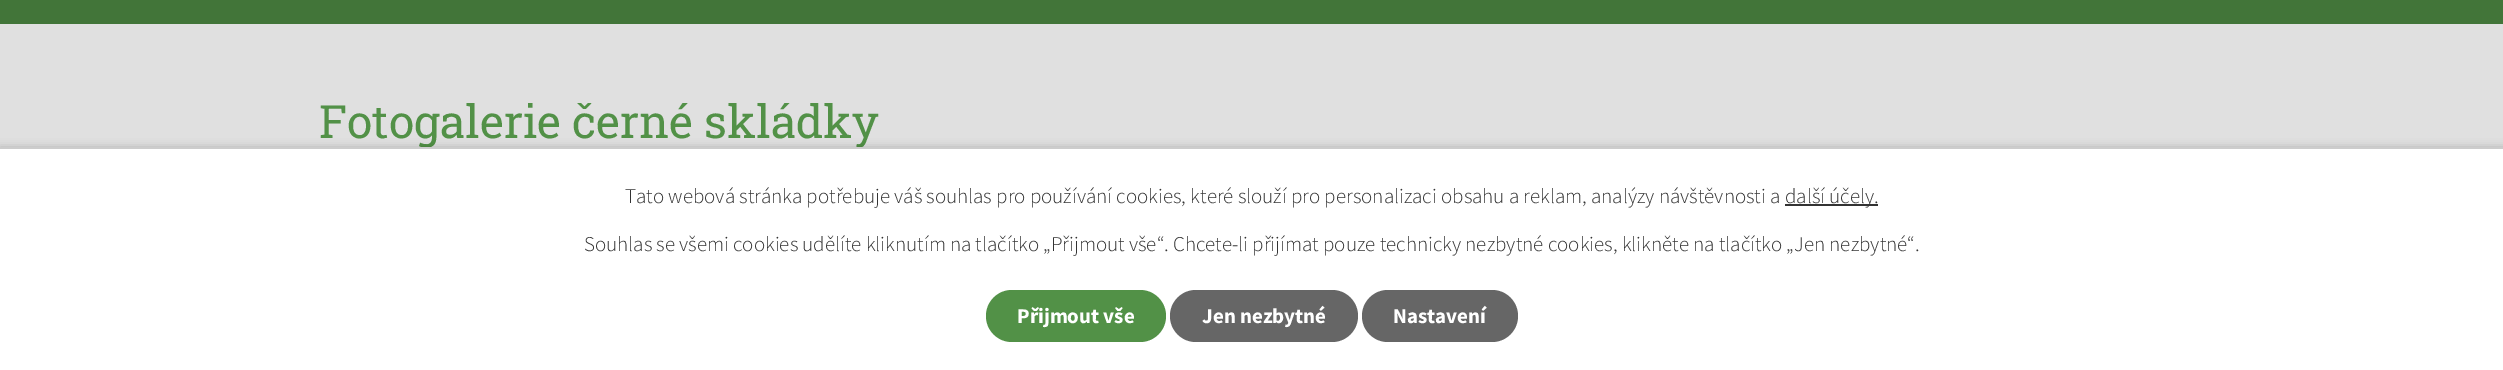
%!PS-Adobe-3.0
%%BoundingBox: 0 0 2503 370
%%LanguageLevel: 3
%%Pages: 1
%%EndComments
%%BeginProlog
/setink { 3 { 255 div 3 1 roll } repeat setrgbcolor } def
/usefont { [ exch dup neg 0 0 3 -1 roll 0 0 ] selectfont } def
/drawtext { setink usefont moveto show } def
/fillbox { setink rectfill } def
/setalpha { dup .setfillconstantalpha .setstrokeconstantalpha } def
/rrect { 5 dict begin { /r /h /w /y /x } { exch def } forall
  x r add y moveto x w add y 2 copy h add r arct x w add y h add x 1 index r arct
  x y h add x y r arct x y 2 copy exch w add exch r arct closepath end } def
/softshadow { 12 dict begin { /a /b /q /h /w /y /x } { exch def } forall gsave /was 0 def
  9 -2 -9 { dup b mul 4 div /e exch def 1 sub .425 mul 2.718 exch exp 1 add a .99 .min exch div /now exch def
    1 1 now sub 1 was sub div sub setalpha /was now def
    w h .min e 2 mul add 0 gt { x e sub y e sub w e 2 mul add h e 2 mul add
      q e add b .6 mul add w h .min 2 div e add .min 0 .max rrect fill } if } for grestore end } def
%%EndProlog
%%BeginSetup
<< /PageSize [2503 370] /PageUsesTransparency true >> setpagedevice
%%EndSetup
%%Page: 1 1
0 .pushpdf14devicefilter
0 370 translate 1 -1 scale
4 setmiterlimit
0 0 2503 370 224 224 224 fillbox
0 0 2503 24 66 117 57 fillbox
(Fotogalerie černé skládky) 319 138 /RobotoSlab-Regular 45.9 82 145 71 drawtext
0 0 0 setink
0 147 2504 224 0 4 0.2 softshadow
0 149 2503 221 255 255 255 fillbox
0 147 2503 2 204 204 204 fillbox
(Tato webová stránka potřebuje váš souhlas pro používání cookies, které slouží pro personalizaci obsahu a reklam, analýzy návštěvnosti a) 625 203 /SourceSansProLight-Light 21 51 51 51 drawtext
1785 204 93 2 51 51 51 fillbox
(další účely.) 1785 203 /SourceSansProLight-Light 21 51 51 51 drawtext
(Souhlas se všemi cookies udělíte kliknutím na tlačítko „Přijmout vše“. Chcete-li přijímat pouze technicky nezbytné cookies, klikněte na tlačítko „Jen nezbytné“.) 584 251 /SourceSansProLight-Light 21 51 51 51 drawtext
82 145 71 setink
986 290 180 52 26 rrect fill
(Přijmout vše) 1017 323 /SourceSansPro-Bold 21 255 255 255 drawtext
102 102 102 setink
1170 290 188 52 26 rrect fill
(Jen nezbytné) 1202 323 /SourceSansPro-Bold 21 255 255 255 drawtext
102 102 102 setink
1362 290 156 52 26 rrect fill
(Nastavení) 1393 323 /SourceSansPro-Bold 21 255 255 255 drawtext
.poppdf14devicefilter showpage
%%EOF
